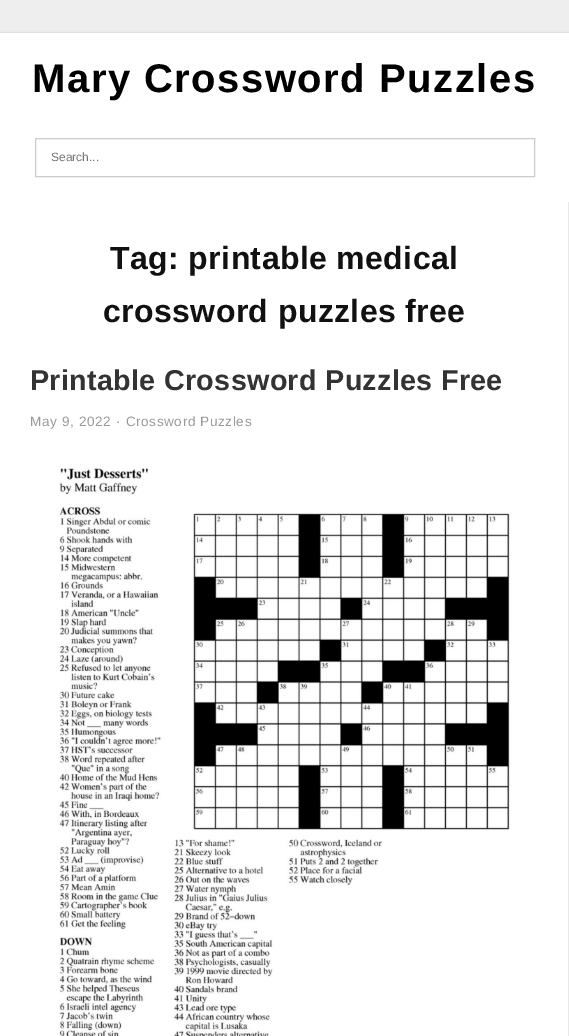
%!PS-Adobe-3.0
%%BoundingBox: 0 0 569 1036
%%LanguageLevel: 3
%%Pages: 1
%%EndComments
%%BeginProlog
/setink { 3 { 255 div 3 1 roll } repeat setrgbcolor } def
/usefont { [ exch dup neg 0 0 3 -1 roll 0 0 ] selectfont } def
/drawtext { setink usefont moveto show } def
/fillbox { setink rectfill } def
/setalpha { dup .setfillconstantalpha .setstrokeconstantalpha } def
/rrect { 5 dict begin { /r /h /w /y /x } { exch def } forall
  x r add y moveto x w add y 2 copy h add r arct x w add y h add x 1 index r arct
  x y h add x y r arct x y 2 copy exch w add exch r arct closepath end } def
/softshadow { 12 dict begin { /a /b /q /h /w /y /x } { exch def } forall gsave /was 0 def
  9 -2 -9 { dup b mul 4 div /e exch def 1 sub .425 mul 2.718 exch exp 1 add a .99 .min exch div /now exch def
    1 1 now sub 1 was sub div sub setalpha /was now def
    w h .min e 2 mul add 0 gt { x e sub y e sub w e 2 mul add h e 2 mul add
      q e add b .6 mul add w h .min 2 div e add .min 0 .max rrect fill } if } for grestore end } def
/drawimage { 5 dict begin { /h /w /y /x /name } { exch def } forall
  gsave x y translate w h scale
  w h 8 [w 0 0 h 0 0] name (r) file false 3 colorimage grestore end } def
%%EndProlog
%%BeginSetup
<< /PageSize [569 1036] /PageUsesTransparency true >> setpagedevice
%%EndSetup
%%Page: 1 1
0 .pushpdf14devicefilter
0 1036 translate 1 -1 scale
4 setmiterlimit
0 0 569 1036 238 238 238 fillbox
0 0 0 setink
0 34 569 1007 0 1.5 0.3 softshadow
0 33 569 1003 255 255 255 fillbox
/LiberationSans-Bold 40 usefont
0 0 0 setink
32 92 moveto 1.5 0 (Mary Crossword Puzzles) ashow
204 204 204 setink
35.5 138.5 499 38 rectstroke
(Search...) 51 161 /LiberationSans-Regular 12 117 117 117 drawtext
568 202 1 834 232 232 232 fillbox
/LiberationSans-Bold 32 usefont
17 17 17 setink
110 269 moveto 0.4 0 (Tag: printable medical) ashow
103 322 moveto 0.4 0 (crossword puzzles free) ashow
/LiberationSans-Bold 28.75 usefont
51 51 51 setink
30 390 moveto 0.3 0 (Printable Crossword Puzzles Free) ashow
/LiberationSans-Regular 13.6 usefont
153 153 153 setink
30 426 moveto 0.6 0 (May 9, 2022) ashow
116 426 moveto 0.6 0 (· Crossword Puzzles) ashow
(assets/img1.rgb) 59 468 451 568 drawimage
.poppdf14devicefilter showpage
%%EOF
